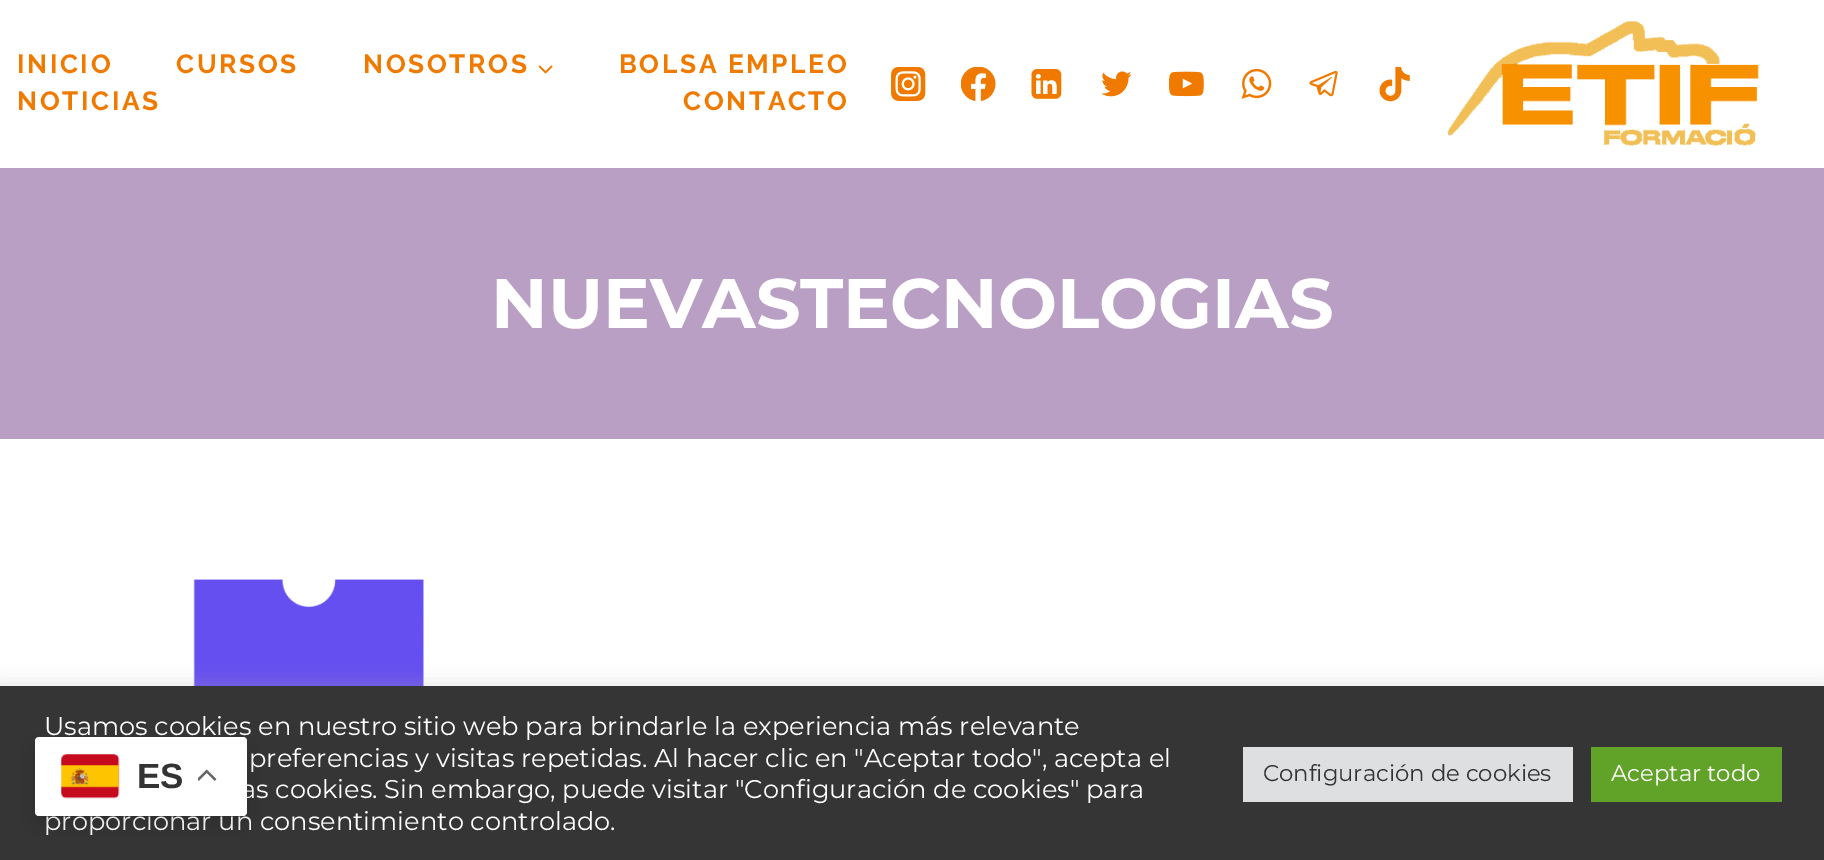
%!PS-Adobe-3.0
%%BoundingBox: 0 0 1824 860
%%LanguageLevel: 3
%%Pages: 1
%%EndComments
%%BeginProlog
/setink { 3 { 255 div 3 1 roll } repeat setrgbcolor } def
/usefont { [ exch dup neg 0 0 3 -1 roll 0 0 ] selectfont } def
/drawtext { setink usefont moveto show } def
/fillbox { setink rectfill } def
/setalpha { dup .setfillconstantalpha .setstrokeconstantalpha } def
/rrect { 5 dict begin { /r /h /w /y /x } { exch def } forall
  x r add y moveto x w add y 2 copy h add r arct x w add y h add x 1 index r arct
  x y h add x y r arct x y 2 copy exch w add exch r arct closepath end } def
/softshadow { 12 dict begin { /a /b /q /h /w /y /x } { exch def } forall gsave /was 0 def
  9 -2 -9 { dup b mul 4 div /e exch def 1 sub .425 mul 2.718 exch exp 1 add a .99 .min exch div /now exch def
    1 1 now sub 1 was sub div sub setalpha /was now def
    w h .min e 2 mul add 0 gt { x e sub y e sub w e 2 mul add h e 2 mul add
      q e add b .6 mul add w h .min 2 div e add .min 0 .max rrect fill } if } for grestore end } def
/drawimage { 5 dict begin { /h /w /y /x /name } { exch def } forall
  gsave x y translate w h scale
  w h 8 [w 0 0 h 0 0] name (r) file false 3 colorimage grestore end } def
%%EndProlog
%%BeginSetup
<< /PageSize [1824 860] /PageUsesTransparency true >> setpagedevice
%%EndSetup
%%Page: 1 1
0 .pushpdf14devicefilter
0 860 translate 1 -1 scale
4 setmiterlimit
0 0 1824 860 255 255 255 fillbox
/Raleway-Bold 26.25 usefont
240 122 0 setink
17 73 moveto 2.6 0 (INICIO) ashow
176 73 moveto 2.6 0 (CURSOS) ashow
363 73 moveto 2.6 0 (NOSOTROS) ashow
(assets/img1.rgb) 538 65 15 9 drawimage
619 73 moveto 2.6 0 (BOLSA EMPLEO) ashow
17 110 moveto 2.6 0 (NOTICIAS) ashow
683 110 moveto 2.6 0 (CONTACTO) ashow
(assets/img2.rgb) 891 67 35 34 drawimage
(assets/img3.rgb) 961 67 35 34 drawimage
(assets/img4.rgb) 1031 69 31 30 drawimage
(assets/img5.rgb) 1101 71 31 26 drawimage
(assets/img6.rgb) 1169 71 35 26 drawimage
(assets/img7.rgb) 1241 68 31 31 drawimage
(assets/img8.rgb) 1309 70 29 27 drawimage
(assets/img9.rgb) 1379 67 31 35 drawimage
(assets/img10.rgb) 1448 21 311 125 drawimage
0 168 1824 271 186 159 196 fillbox
(NUEVASTECNOLOGIAS) 491 328 /Montserrat-Bold 70 255 255 255 drawtext
(assets/img11.rgb) 193 579 231 107 drawimage
172 171 171 setink
0 684 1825 175 0 9 0.3 softshadow
0 686 1824 174 53 53 53 fillbox
(Usamos cookies en nuestro sitio web para brindarle la experiencia más relevante) 44 735 /Montserrat-Regular 25.65 255 255 255 drawtext
(preferencias y visitas repetidas. Al hacer clic en "Aceptar todo", acepta el) 249 767 /Montserrat-Regular 25.65 255 255 255 drawtext
(as cookies. Sin embargo, puede visitar "Configuración de cookies" para) 241 798 /Montserrat-Regular 25.65 255 255 255 drawtext
(proporcionar un consentimiento controlado.) 44 830 /Montserrat-Regular 25.65 255 255 255 drawtext
1243 747 330 55 222 223 224 fillbox
(Configuración de cookies) 1263 781 /Montserrat-Regular 22.75 51 51 51 drawtext
1591 747 191 55 97 162 41 fillbox
(Aceptar todo) 1611 781 /Montserrat-Regular 22.75 255 255 255 drawtext
0 0 0 setink
35 746 212 78 4 13 0.15 softshadow
255 255 255 setink
35 737 212 79 4 rrect fill
(assets/img12.rgb) 61 754 59 45 drawimage
(ES) 137 788 /LiberationSans-Bold 35 51 51 51 drawtext
(assets/img13.rgb) 198 769 19 12 drawimage
.poppdf14devicefilter showpage
%%EOF
